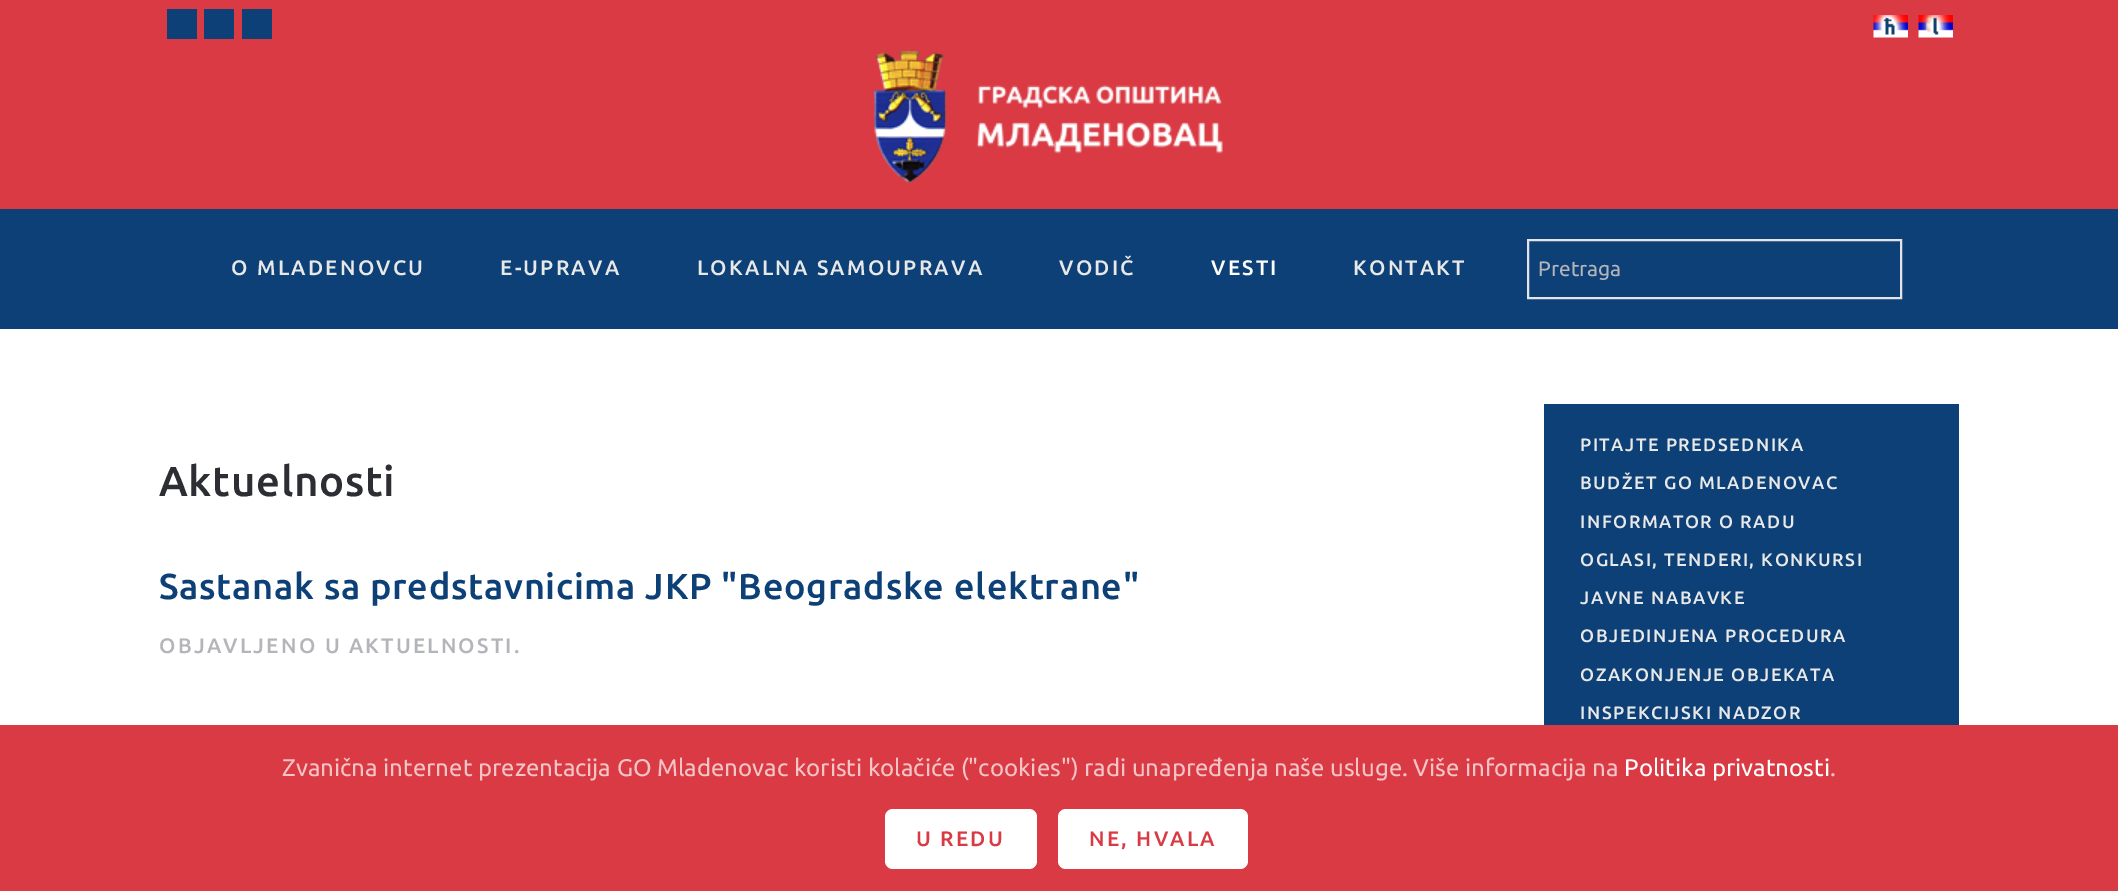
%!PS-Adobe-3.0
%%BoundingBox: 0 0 2118 891
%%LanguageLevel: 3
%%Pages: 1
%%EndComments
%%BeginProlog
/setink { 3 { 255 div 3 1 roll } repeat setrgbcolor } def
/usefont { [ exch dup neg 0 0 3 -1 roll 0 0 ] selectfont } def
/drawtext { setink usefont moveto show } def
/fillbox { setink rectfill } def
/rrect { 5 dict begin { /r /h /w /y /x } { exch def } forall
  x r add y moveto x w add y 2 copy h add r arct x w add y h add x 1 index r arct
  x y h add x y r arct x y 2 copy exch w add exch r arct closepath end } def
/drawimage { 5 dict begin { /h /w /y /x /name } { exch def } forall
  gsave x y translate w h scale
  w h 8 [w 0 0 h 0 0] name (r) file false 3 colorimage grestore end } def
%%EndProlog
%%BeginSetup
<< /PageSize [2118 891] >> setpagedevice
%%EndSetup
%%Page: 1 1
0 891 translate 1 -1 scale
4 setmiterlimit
0 0 2118 891 255 255 255 fillbox
0 0 2118 209 217 58 67 fillbox
167 9 30 30 12 64 118 fillbox
204 9 30 30 12 64 118 fillbox
242 9 30 30 12 64 118 fillbox
(assets/img1.rgb) 1873 15 35 23 drawimage
(assets/img2.rgb) 1918 15 35 23 drawimage
(assets/img3.rgb) 873 49 350 135 drawimage
0 209 2118 120 12 64 118 fillbox
/Ubuntu-Medium 21 usefont
232 232 232 setink
231 275 moveto 2.25 0 (O MLADENOVCU) ashow
500 275 moveto 2.25 0 (E-UPRAVA) ashow
697 275 moveto 2.25 0 (LOKALNA SAMOUPRAVA) ashow
1059 275 moveto 2.25 0 (VODIČ) ashow
255 255 255 setink
1211 275 moveto 2.25 0 (VESTI) ashow
232 232 232 setink
1353 275 moveto 2.25 0 (KONTAKT) ashow
229 229 231 setink
2 setlinewidth
1528 240 373 58 rectstroke
(Pretraga) 1538 276 /Ubuntu-Regular 21 180 181 186 drawtext
/Ubuntu-Medium 42 usefont
45 46 51 setink
159 496 moveto 0.75 0 (Aktuelnosti) ashow
/Ubuntu-Medium 36 usefont
12 64 118 setink
159 599 moveto 0.75 0 (Sastanak sa predstavnicima JКP "Beogradske elektrane") ashow
/Ubuntu-Medium 21 usefont
180 181 186 setink
159 653 moveto 2.25 0 (OBJAVLJENO U AKTUELNOSTI.) ashow
1544 404 415 321 12 64 118 fillbox
/Ubuntu-Medium 18 usefont
232 232 232 setink
1580 451 moveto 1.5 0 (PITAJTE PREDSEDNIKA) ashow
1580 489 moveto 1.5 0 (BUDŽET GO MLADENOVAC) ashow
1580 528 moveto 1.5 0 (INFORMATOR O RADU) ashow
1580 566 moveto 1.5 0 (OGLASI, TENDERI, KONKURSI) ashow
1580 604 moveto 1.5 0 (JAVNE NABAVKE) ashow
1580 642 moveto 1.5 0 (OBJEDINJENA PROCEDURA) ashow
1580 681 moveto 1.5 0 (OZAKONJENJE OBJEKATA) ashow
1580 719 moveto 1.5 0 (INSPEKCIJSKI NADZOR) ashow
0 725 2118 166 217 58 67 fillbox
(Zvanična internet prezentacija GO Mladenovac koristi kolačiće \("cookies"\) radi unapređenja naše usluge. Više informacija na) 282 776 /Ubuntu-Regular 24 244 196 199 drawtext
(Politika privatnosti) 1624 776 /Ubuntu-Regular 24 255 255 255 drawtext
(.) 1830 776 /Ubuntu-Regular 24 244 196 199 drawtext
255 255 255 setink
885 809 152 60 8 rrect fill
/Ubuntu-Medium 21 usefont
217 58 67 setink
916 846 moveto 2.25 0 (U REDU) ashow
255 255 255 setink
1058 809 190 60 8 rrect fill
217 58 67 setink
1089 846 moveto 2.25 0 (NE, HVALA) ashow
showpage
%%EOF
